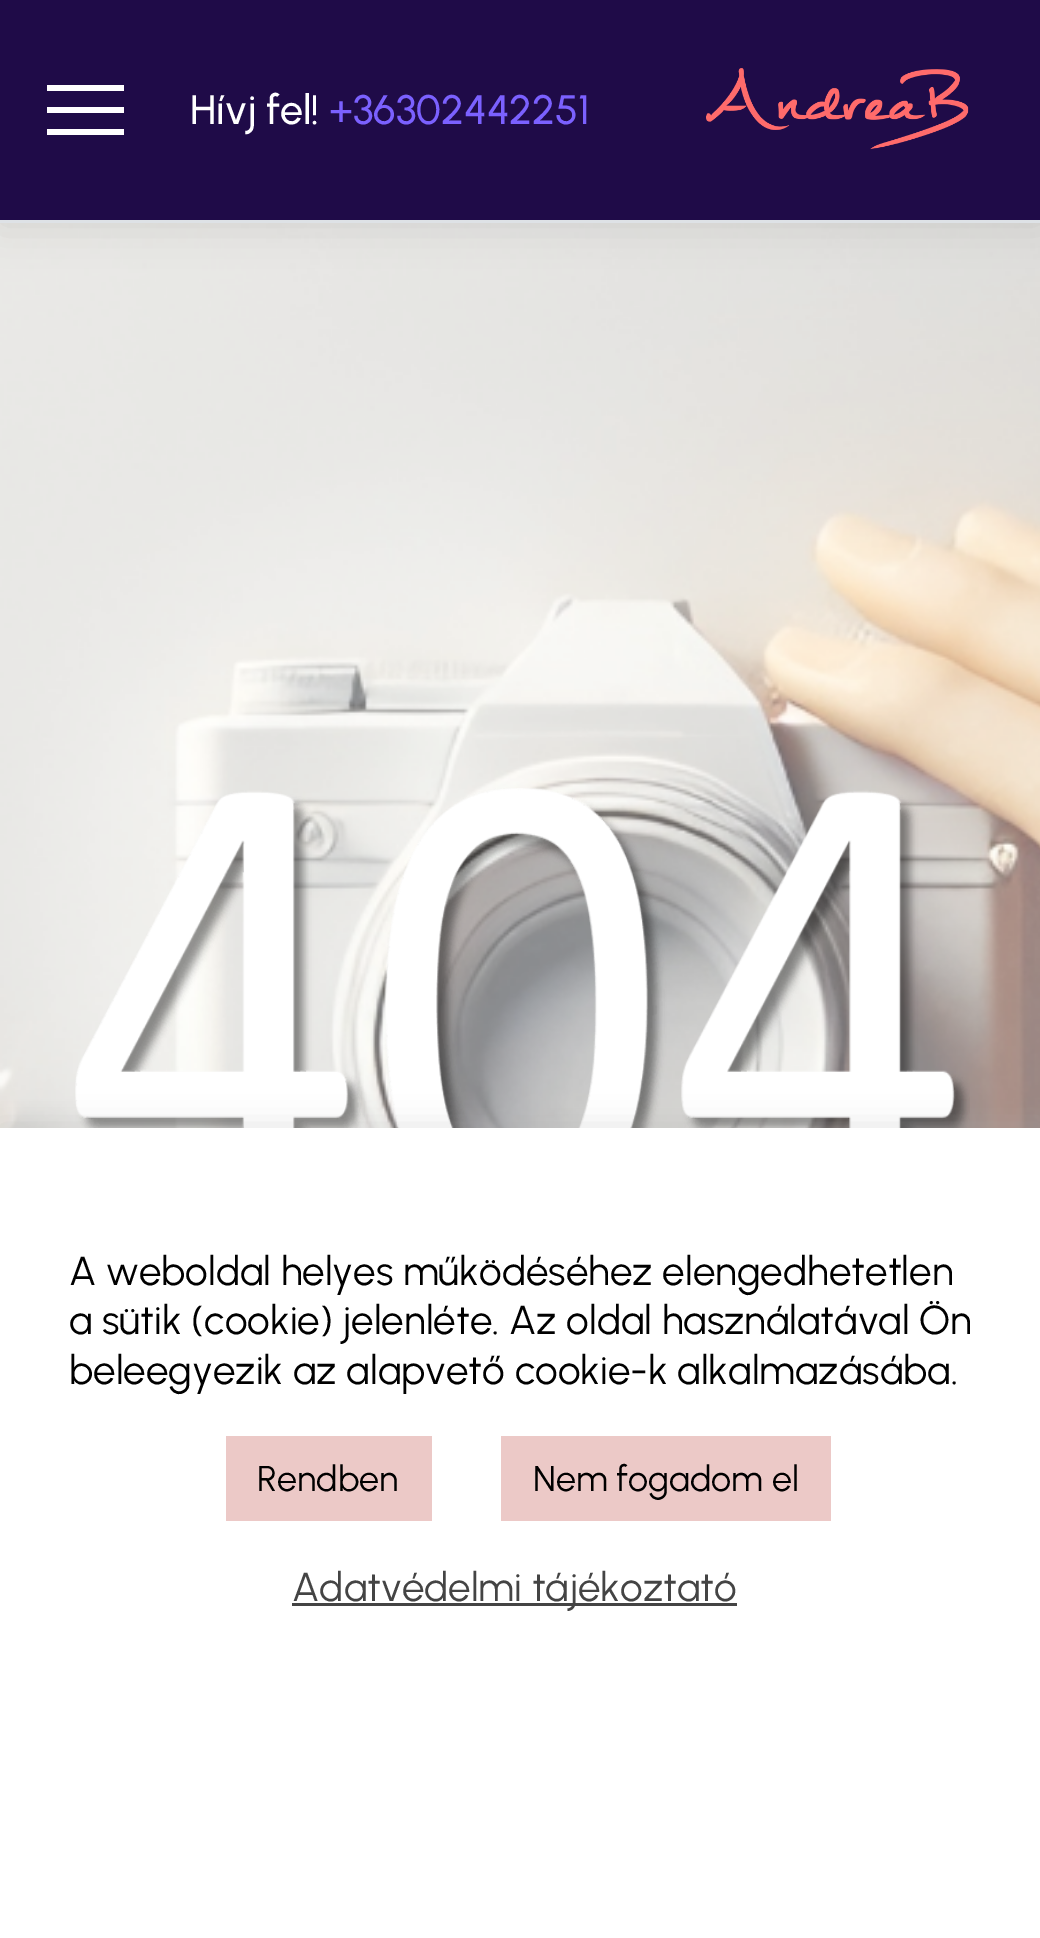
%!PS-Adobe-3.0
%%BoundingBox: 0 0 1040 1938
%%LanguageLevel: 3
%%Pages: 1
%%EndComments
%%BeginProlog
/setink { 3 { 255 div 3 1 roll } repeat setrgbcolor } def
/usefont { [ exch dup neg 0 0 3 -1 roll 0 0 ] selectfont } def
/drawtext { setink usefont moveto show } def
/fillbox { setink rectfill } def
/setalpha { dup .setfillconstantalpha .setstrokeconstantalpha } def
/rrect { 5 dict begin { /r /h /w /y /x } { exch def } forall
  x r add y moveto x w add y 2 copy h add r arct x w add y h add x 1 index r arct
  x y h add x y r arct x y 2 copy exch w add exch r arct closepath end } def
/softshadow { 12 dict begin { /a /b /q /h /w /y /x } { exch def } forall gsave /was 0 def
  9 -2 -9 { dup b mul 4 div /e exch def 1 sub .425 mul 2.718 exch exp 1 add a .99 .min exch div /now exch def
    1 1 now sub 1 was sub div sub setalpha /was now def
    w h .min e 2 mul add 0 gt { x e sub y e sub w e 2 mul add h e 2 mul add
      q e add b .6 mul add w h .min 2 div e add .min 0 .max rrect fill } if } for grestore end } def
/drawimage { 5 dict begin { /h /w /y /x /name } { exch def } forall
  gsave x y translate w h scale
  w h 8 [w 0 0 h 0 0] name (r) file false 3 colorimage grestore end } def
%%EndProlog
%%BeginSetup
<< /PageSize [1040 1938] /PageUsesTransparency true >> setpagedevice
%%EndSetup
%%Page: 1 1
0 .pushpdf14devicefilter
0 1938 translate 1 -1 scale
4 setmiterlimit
0 0 1040 1938 255 255 255 fillbox
(assets/img2.rgb) 0 223 1040 905 drawimage
0 0 0 setink
0 0 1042 223 0 20.5 0.1 softshadow
0 0 1040 220 31 11 72 fillbox
0 220 1040 3 222 226 230 fillbox
47 107 77 6 255 255 255 fillbox
47 85 77 6 255 255 255 fillbox
47 129 77 6 255 255 255 fillbox
(Hívj fel!) 190 124 /Urbanist-Medium 41.25 255 255 255 drawtext
(+36302442251) 329 124 /Urbanist-Medium 41.25 123 97 255 drawtext
(assets/img1.rgb) 706 68 263 82 drawimage
(assets/img3.rgb) 75 788 895 340 drawimage
172 171 171 setink
0 1125 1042 811 0 14 0.3 softshadow
0 1128 1040 810 255 255 255 fillbox
(A weboldal helyes működéséhez elengedhetetlen) 69 1285 /Urbanist-Regular 40.3 0 0 0 drawtext
(a sütik \(cookie\) jelenléte. Az oldal használatával Ön) 69 1334 /Urbanist-Regular 40.3 0 0 0 drawtext
(beleegyezik az alapvető cookie-k alkalmazásába.) 69 1384 /Urbanist-Regular 40.3 0 0 0 drawtext
226 1436 206 85 236 201 199 fillbox
(Rendben) 257 1491 /Urbanist-Regular 35.75 0 0 0 drawtext
501 1436 330 85 236 201 199 fillbox
(Nem fogadom el) 533 1491 /Urbanist-Regular 35.75 0 0 0 drawtext
292 1603 445 3 68 68 68 fillbox
(Adatvédelmi tájékoztató) 292 1601 /Urbanist-Regular 40.3 68 68 68 drawtext
.poppdf14devicefilter showpage
%%EOF
